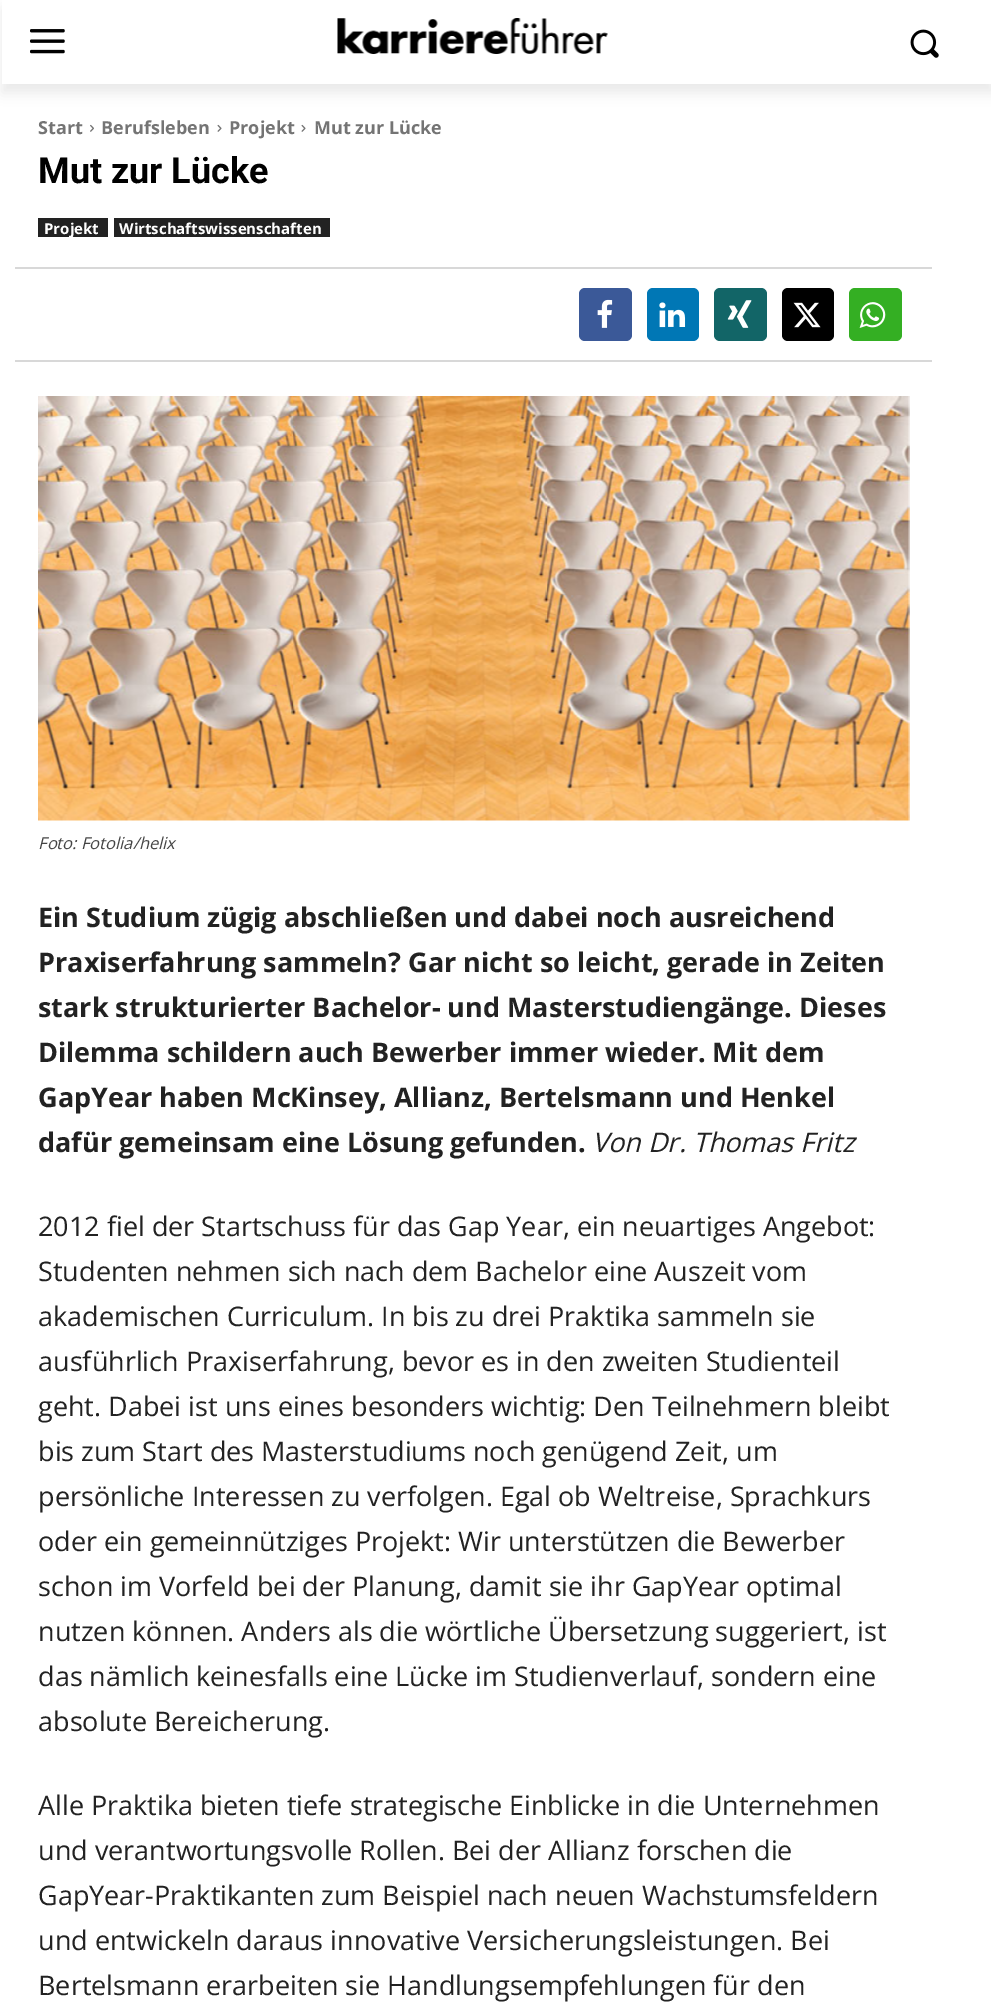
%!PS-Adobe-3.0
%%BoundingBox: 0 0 991 2003
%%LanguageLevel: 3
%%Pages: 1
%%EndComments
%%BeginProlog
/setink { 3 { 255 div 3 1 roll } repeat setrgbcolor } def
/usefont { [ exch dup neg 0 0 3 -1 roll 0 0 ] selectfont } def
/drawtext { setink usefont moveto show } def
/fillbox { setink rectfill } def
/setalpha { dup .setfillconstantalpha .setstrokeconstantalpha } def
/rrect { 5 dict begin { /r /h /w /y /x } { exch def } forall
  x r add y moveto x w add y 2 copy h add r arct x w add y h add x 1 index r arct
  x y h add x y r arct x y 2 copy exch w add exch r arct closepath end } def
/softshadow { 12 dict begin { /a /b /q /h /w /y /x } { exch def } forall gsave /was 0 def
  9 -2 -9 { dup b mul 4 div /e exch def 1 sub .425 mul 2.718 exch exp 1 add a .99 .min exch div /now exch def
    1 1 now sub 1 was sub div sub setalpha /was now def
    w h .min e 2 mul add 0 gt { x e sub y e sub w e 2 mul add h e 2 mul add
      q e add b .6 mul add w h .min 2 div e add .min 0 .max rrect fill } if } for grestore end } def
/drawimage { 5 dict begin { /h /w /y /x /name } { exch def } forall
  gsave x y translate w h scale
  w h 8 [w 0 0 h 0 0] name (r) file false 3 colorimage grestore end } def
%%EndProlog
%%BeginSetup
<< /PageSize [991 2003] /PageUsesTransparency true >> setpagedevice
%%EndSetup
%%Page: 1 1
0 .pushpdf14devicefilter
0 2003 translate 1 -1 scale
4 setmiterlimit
0 0 991 2003 255 255 255 fillbox
(assets/img1.rgb) 30 29 35 25 drawimage
(assets/img2.rgb) 337 18 271 36 drawimage
(assets/img3.rgb) 910 29 29 29 drawimage
gsave
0 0 moveto 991 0 lineto 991 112 lineto 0 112 lineto closepath 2 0 moveto 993 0 lineto 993 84 lineto 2 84 lineto closepath eoclip newpath
0 0 0 setink
2 9 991 84 0 6 0.08 softshadow
grestore
(Start) 38 134 /OpenSans-Bold 18 116 116 116 drawtext
(assets/img4.rgb) 90 124 4 8 drawimage
(Berufsleben) 101 134 /OpenSans-Bold 18 116 116 116 drawtext
(assets/img5.rgb) 217 124 5 8 drawimage
(Projekt) 229 134 /OpenSans-Bold 18 116 116 116 drawtext
(assets/img5.rgb) 301 124 5 8 drawimage
(Mut zur Lücke) 314 134 /OpenSans-Bold 18 116 116 116 drawtext
(Mut zur Lücke) 38 183 /Roboto-Bold 36 0 0 0 drawtext
15 267 917 2 216 216 216 fillbox
38 218 70 19 34 34 34 fillbox
(Projekt) 44 234 /OpenSans-Bold 15 255 255 255 drawtext
114 218 216 19 34 34 34 fillbox
(Wirtschaftswissenschaften) 119 234 /OpenSans-Bold 15 255 255 255 drawtext
15 360 917 2 216 216 216 fillbox
59 89 152 setink
579 288 53 53 6 rrect fill
(assets/img6.rgb) 597 299 16 29 drawimage
0 119 181 setink
647 288 52 53 6 rrect fill
(assets/img7.rgb) 659 302 27 26 drawimage
18 101 103 setink
714 288 53 53 6 rrect fill
(assets/img8.rgb) 727 300 25 28 drawimage
0 0 0 setink
782 288 52 53 6 rrect fill
(assets/img9.rgb) 793 302 28 26 drawimage
52 175 35 setink
849 288 53 53 6 rrect fill
(assets/img10.rgb) 859 302 27 26 drawimage
(assets/img11.rgb) 38 396 872 425 drawimage
(Foto: Fotolia/helix) 38 849 /OpenSans-Italic 16.5 68 68 68 drawtext
(Ein Studium zügig abschließen und dabei noch ausreichend) 38 927 /OpenSans-Bold 27 34 34 34 drawtext
(Praxiserfahrung sammeln? Gar nicht so leicht, gerade in Zeiten) 38 972 /OpenSans-Bold 27 34 34 34 drawtext
(stark strukturierter Bachelor- und Masterstudiengänge. Dieses) 38 1017 /OpenSans-Bold 27 34 34 34 drawtext
(Dilemma schildern auch Bewerber immer wieder. Mit dem) 38 1062 /OpenSans-Bold 27 34 34 34 drawtext
(GapYear haben McKinsey, Allianz, Bertelsmann und Henkel) 38 1107 /OpenSans-Bold 27 34 34 34 drawtext
(dafür gemeinsam eine Lösung gefunden.) 38 1152 /OpenSans-Bold 27 34 34 34 drawtext
(Von Dr. Thomas Fritz) 592 1152 /OpenSans-Italic 27 34 34 34 drawtext
(2012 fiel der Startschuss für das Gap Year, ein neuartiges Angebot:) 38 1236 /OpenSans-Regular 27 34 34 34 drawtext
(Studenten nehmen sich nach dem Bachelor eine Auszeit vom) 38 1281 /OpenSans-Regular 27 34 34 34 drawtext
(akademischen Curriculum. In bis zu drei Praktika sammeln sie) 38 1326 /OpenSans-Regular 27 34 34 34 drawtext
(ausführlich Praxiserfahrung, bevor es in den zweiten Studienteil) 38 1371 /OpenSans-Regular 27 34 34 34 drawtext
(geht. Dabei ist uns eines besonders wichtig: Den Teilnehmern bleibt) 38 1416 /OpenSans-Regular 27 34 34 34 drawtext
(bis zum Start des Masterstudiums noch genügend Zeit, um) 38 1461 /OpenSans-Regular 27 34 34 34 drawtext
(persönliche Interessen zu verfolgen. Egal ob Weltreise, Sprachkurs) 38 1506 /OpenSans-Regular 27 34 34 34 drawtext
(oder ein gemeinnütziges Projekt: Wir unterstützen die Bewerber) 38 1551 /OpenSans-Regular 27 34 34 34 drawtext
(schon im Vorfeld bei der Planung, damit sie ihr GapYear optimal) 38 1596 /OpenSans-Regular 27 34 34 34 drawtext
(nutzen können. Anders als die wörtliche Übersetzung suggeriert, ist) 38 1641 /OpenSans-Regular 27 34 34 34 drawtext
(das nämlich keinesfalls eine Lücke im Studienverlauf, sondern eine) 38 1686 /OpenSans-Regular 27 34 34 34 drawtext
(absolute Bereicherung.) 38 1731 /OpenSans-Regular 27 34 34 34 drawtext
(Alle Praktika bieten tiefe strategische Einblicke in die Unternehmen) 38 1815 /OpenSans-Regular 27 34 34 34 drawtext
(und verantwortungsvolle Rollen. Bei der Allianz forschen die) 38 1860 /OpenSans-Regular 27 34 34 34 drawtext
(GapYear-Praktikanten zum Beispiel nach neuen Wachstumsfeldern) 38 1905 /OpenSans-Regular 27 34 34 34 drawtext
(und entwickeln daraus innovative Versicherungsleistungen. Bei) 38 1950 /OpenSans-Regular 27 34 34 34 drawtext
(Bertelsmann erarbeiten sie Handlungsempfehlungen für den) 38 1995 /OpenSans-Regular 27 34 34 34 drawtext
.poppdf14devicefilter showpage
%%EOF
